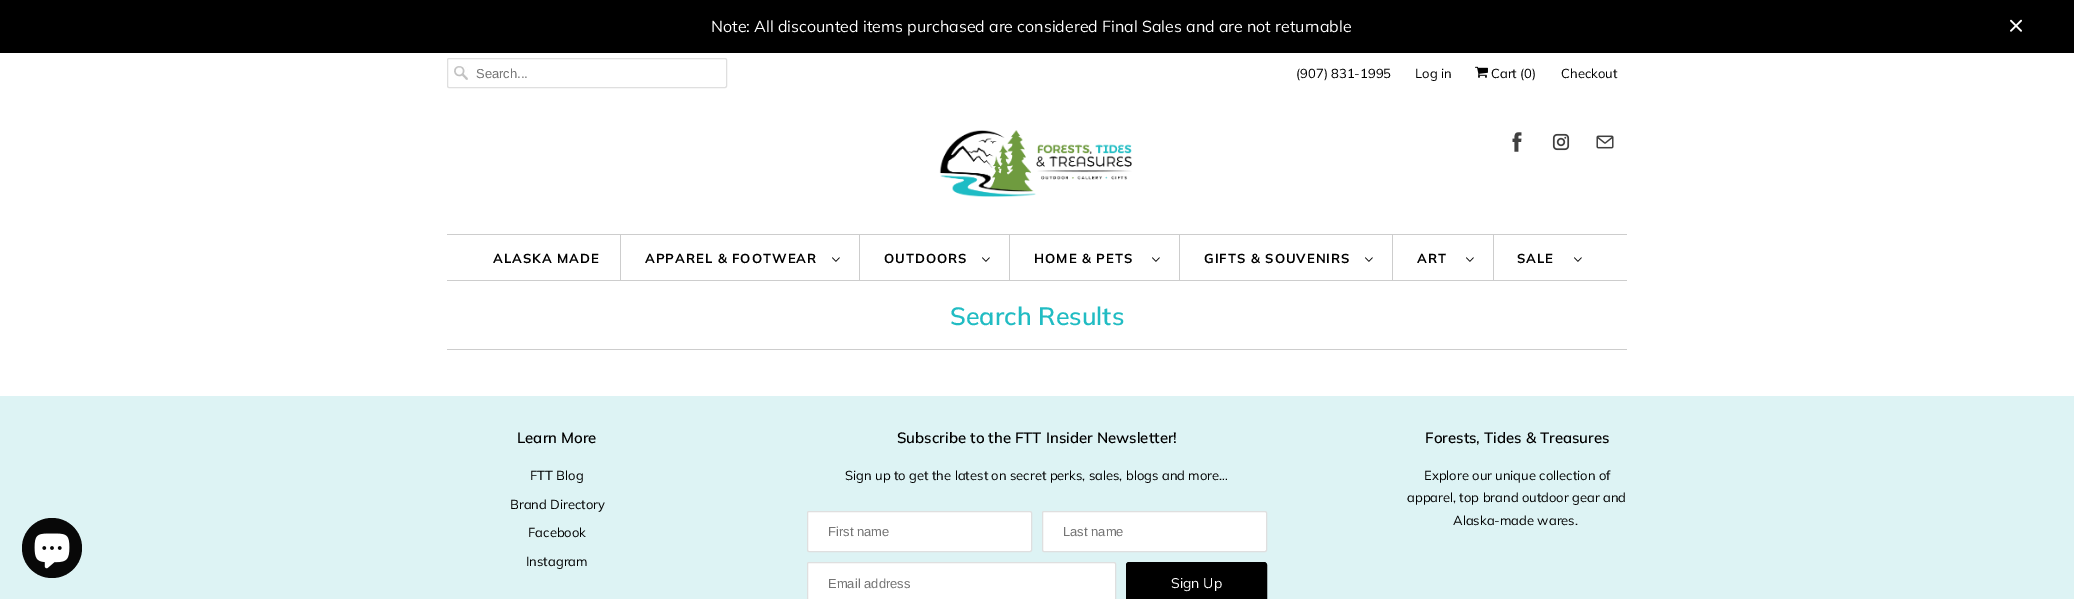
%!PS-Adobe-3.0
%%BoundingBox: 0 0 2074 599
%%LanguageLevel: 3
%%Pages: 1
%%EndComments
%%BeginProlog
/setink { 3 { 255 div 3 1 roll } repeat setrgbcolor } def
/usefont { [ exch dup neg 0 0 3 -1 roll 0 0 ] selectfont } def
/drawtext { setink usefont moveto show } def
/fillbox { setink rectfill } def
/disc { newpath 0 360 arc closepath } def
/rrect { 5 dict begin { /r /h /w /y /x } { exch def } forall
  x r add y moveto x w add y 2 copy h add r arct x w add y h add x 1 index r arct
  x y h add x y r arct x y 2 copy exch w add exch r arct closepath end } def
/drawimage { 5 dict begin { /h /w /y /x /name } { exch def } forall
  gsave x y translate w h scale
  w h 8 [w 0 0 h 0 0] name (r) file false 3 colorimage grestore end } def
%%EndProlog
%%BeginSetup
<< /PageSize [2074 599] >> setpagedevice
%%EndSetup
%%Page: 1 1
0 599 translate 1 -1 scale
4 setmiterlimit
0 0 2074 599 255 255 255 fillbox
0 0 2074 53 0 0 0 fillbox
(Note: All discounted items purchased are considered Final Sales and are not returnable) 711 32 /Muli-Regular 16 255 255 255 drawtext
(assets/img1.rgb) 2010 19 12 13 drawimage
(assets/img2.rgb) 454 66 14 14 drawimage
223 223 223 setink
447.5 58.5 279 29 1.5 rrect stroke
(Search...) 476 78 /LiberationSans-Regular 13 117 117 117 drawtext
(\(907\) 831-1995) 1296 78 /Muli-Regular 13 0 0 0 drawtext
(Log in) 1415 78 /Muli-Regular 13 0 0 0 drawtext
(assets/img3.rgb) 1475 66 13 12 drawimage
(Cart \(0\)) 1491 78 /Muli-Regular 13 0 0 0 drawtext
(Checkout) 1561 78 /Muli-Regular 13 0 0 0 drawtext
(assets/img4.rgb) 939 130 193 67 drawimage
(assets/img5.rgb) 1512 132 10 20 drawimage
(assets/img6.rgb) 1552 133 18 18 drawimage
(assets/img7.rgb) 1596 135 18 14 drawimage
447 234 1180 1 205 205 205 fillbox
447 280 1180 1 205 205 205 fillbox
620 235 1 45 205 205 205 fillbox
/Muli-Bold 13 usefont
0 0 0 setink
493 263 moveto 1 0 (ALASKA MADE) ashow
859 235 1 45 205 205 205 fillbox
0 0 0 setink
645 263 moveto 1 0 (APPAREL & FOOTWEAR) ashow
(assets/img8.rgb) 832 257 8 5 drawimage
1009 235 1 45 205 205 205 fillbox
0 0 0 setink
884 263 moveto 1 0 (OUTDOORS) ashow
(assets/img8.rgb) 982 257 8 5 drawimage
1179 235 1 45 205 205 205 fillbox
0 0 0 setink
1034 263 moveto 1 0 (HOME & PETS) ashow
(assets/img8.rgb) 1152 257 8 5 drawimage
1392 235 1 45 205 205 205 fillbox
0 0 0 setink
1204 263 moveto 1 0 (GIFTS & SOUVENIRS) ashow
(assets/img8.rgb) 1365 257 8 5 drawimage
1493 235 1 45 205 205 205 fillbox
0 0 0 setink
1417 263 moveto 1 0 (ART) ashow
(assets/img8.rgb) 1466 257 8 5 drawimage
1517 263 moveto 1 0 (SALE) ashow
(assets/img8.rgb) 1574 257 8 5 drawimage
447 349 1180 1 205 205 205 fillbox
(Search Results) 950 325 /Muli-SemiBold 25 33 188 195 drawtext
0 396 2074 203 221 243 244 fillbox
8 8 8 setink
52 548 30 disc fill
(assets/img9.rgb) 34 533 36 36 drawimage
(Learn More) 517 443 /Muli-SemiBold 15 0 0 0 drawtext
(FTT Blog) 530 480 /Muli-Regular 13 0 0 0 drawtext
(Brand Directory) 510 509 /Muli-Regular 13 0 0 0 drawtext
(Facebook) 528 537 /Muli-Regular 13 0 0 0 drawtext
(Instagram) 526 566 /Muli-Regular 13 0 0 0 drawtext
(Subscribe to the FTT Insider Newsletter!) 897 443 /Muli-SemiBold 15 0 0 0 drawtext
(Sign up to get the latest on secret perks, sales, blogs and more…) 845 480 /Muli-Regular 13 0 0 0 drawtext
255 255 255 setink
807.5 511.5 224 40 1.5 rrect gsave fill grestore
223 223 223 setink
stroke
(First name) 828 536 /LiberationSans-Regular 13 117 117 117 drawtext
255 255 255 setink
1042.5 511.5 224 40 1.5 rrect gsave fill grestore
223 223 223 setink
stroke
(Last name) 1063 536 /LiberationSans-Regular 13 117 117 117 drawtext
255 255 255 setink
807.5 562.5 308 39 1.5 rrect gsave fill grestore
223 223 223 setink
stroke
(Email address) 828 588 /LiberationSans-Regular 13 117 117 117 drawtext
0 0 0 setink
1126.5 562.5 140 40 2.5 rrect gsave fill grestore
stroke
(Sign Up) 1171 588 /Muli-Regular 14 255 255 255 drawtext
(Forests, Tides & Treasures) 1425 443 /Muli-SemiBold 15 0 0 0 drawtext
(Explore our unique collection of) 1424 480 /Muli-Regular 13 0 0 0 drawtext
(apparel, top brand outdoor gear and) 1407 502 /Muli-Regular 13 0 0 0 drawtext
(Alaska-made wares.) 1453 525 /Muli-Regular 13 0 0 0 drawtext
showpage
%%EOF
